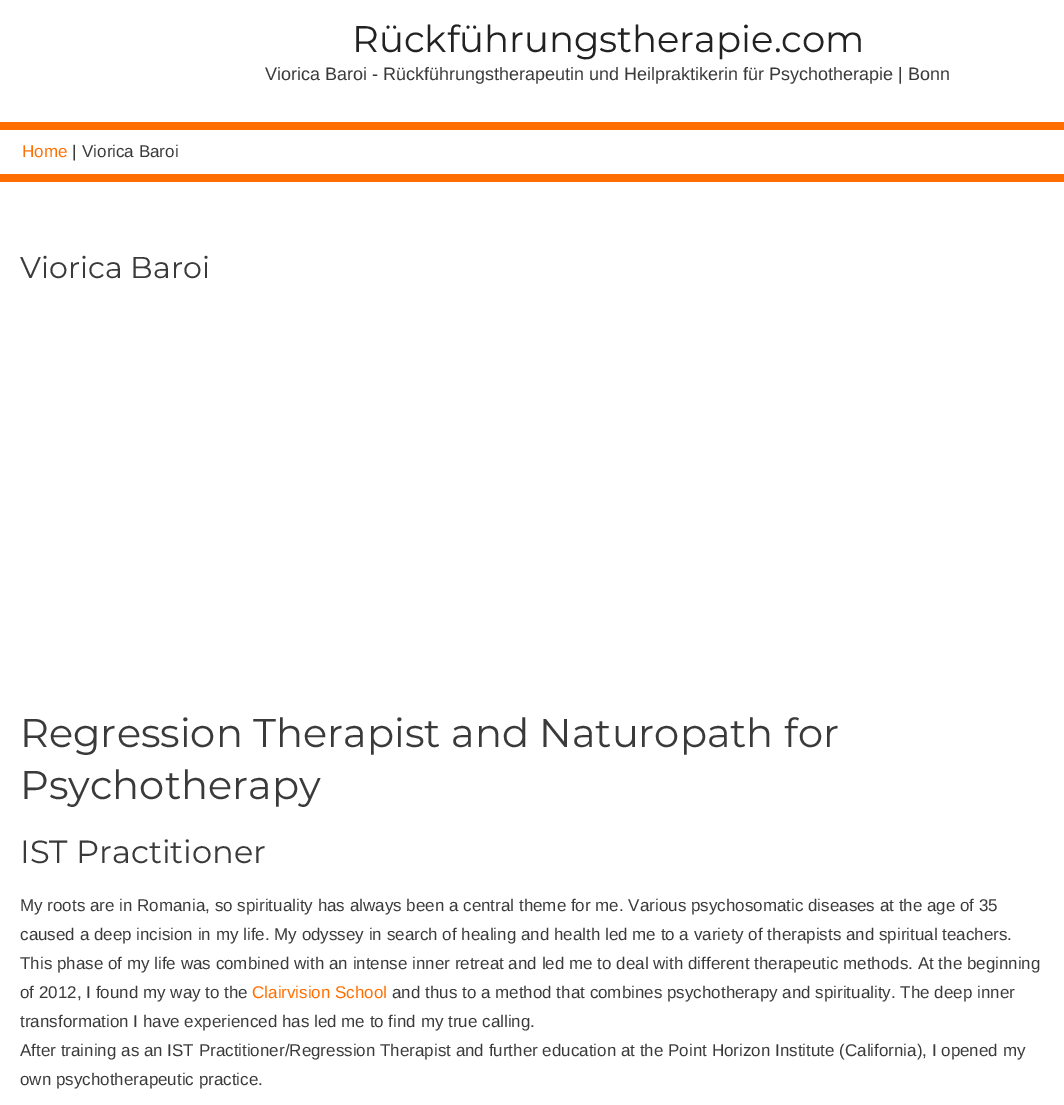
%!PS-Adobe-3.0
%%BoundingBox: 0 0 1064 1105
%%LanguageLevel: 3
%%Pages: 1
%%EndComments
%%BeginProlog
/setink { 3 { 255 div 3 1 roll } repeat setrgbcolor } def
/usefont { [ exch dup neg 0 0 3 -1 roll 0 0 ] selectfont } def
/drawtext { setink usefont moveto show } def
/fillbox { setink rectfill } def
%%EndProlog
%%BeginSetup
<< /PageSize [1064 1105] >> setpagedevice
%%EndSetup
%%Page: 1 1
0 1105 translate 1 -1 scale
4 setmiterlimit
0 0 1064 1105 255 255 255 fillbox
0 122 1064 8 255 110 0 fillbox
(Rückführungstherapie.com) 352 52 /Montserrat-Regular 37 34 34 34 drawtext
(Viorica Baroi - Rückführungstherapeutin und Heilpraktikerin für Psychotherapie | Bonn) 265 80 /LiberationSans-Regular 18 58 58 58 drawtext
0 174 1064 8 255 110 0 fillbox
(Home) 22 157 /LiberationSans-Regular 17 255 110 0 drawtext
(|) 72 157 /LiberationSans-Regular 17 58 58 58 drawtext
(Viorica Baroi) 82 157 /LiberationSans-Regular 17 58 58 58 drawtext
(Viorica Baroi) 20 278 /Montserrat-Regular 30 58 58 58 drawtext
(Regression Therapist and Naturopath for) 20 747 /Montserrat-Regular 40 58 58 58 drawtext
(Psychotherapy) 20 799 /Montserrat-Regular 40 58 58 58 drawtext
(IST Practitioner) 20 863 /Montserrat-Regular 32 58 58 58 drawtext
(My roots are in Romania, so spirituality has always been a central theme for me. Various psychosomatic diseases at the age of 35) 20 911 /LiberationSans-Regular 17 58 58 58 drawtext
(caused a deep incision in my life. My odyssey in search of healing and health led me to a variety of therapists and spiritual teachers.) 20 940 /LiberationSans-Regular 17 58 58 58 drawtext
(This phase of my life was combined with an intense inner retreat and led me to deal with different therapeutic methods. At the beginning) 20 969 /LiberationSans-Regular 17 58 58 58 drawtext
(of 2012, I found my way to the) 20 998 /LiberationSans-Regular 17 58 58 58 drawtext
(Clairvision School) 252 998 /LiberationSans-Regular 17 255 110 0 drawtext
(and thus to a method that combines psychotherapy and spirituality. The deep inner) 392 998 /LiberationSans-Regular 17 58 58 58 drawtext
(transformation I have experienced has led me to find my true calling.) 20 1027 /LiberationSans-Regular 17 58 58 58 drawtext
(After training as an IST Practitioner/Regression Therapist and further education at the Point Horizon Institute \(California\), I opened my) 20 1056 /LiberationSans-Regular 17 58 58 58 drawtext
(own psychotherapeutic practice.) 20 1085 /LiberationSans-Regular 17 58 58 58 drawtext
showpage
%%EOF
